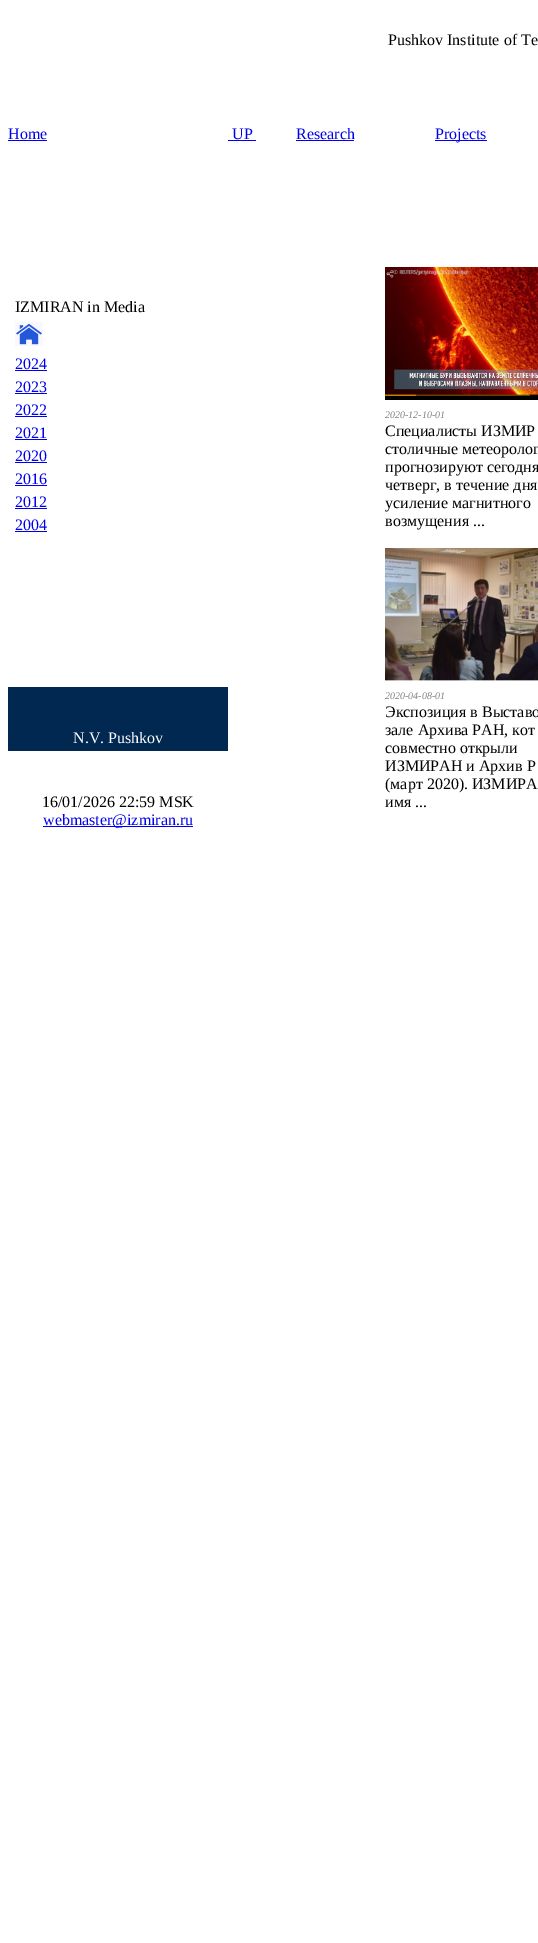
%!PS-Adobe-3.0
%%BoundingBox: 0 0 538 1943
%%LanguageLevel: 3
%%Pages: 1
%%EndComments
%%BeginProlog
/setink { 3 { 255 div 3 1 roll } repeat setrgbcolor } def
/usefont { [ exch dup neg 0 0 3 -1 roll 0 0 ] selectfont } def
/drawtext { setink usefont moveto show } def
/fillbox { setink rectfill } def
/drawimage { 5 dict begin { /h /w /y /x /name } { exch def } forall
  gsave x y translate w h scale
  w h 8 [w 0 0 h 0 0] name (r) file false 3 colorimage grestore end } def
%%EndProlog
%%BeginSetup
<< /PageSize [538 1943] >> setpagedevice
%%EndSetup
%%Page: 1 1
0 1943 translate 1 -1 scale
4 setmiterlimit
0 0 538 1943 255 255 255 fillbox
(Pushkov Institute of Te) 388 45 /LiberationSerif-Regular 16 0 0 0 drawtext
(Home) 8 139 /LiberationSerif-Regular 16 0 0 238 drawtext
8 140 39 1 0 0 238 fillbox
(UP) 232 139 /LiberationSerif-Regular 16 0 0 238 drawtext
228 140 28 1 0 0 238 fillbox
(Research) 296 139 /LiberationSerif-Regular 16 0 0 238 drawtext
296 140 58 1 0 0 238 fillbox
435 140 52 1 0 0 238 fillbox
(Projects) 435 139 /LiberationSerif-Regular 16 0 0 238 drawtext
(IZMIRAN in Media) 15 312 /LiberationSerif-Regular 16 0 0 0 drawtext
(assets/img1.rgb) 15 322 28 24 drawimage
(2024) 15 369 /LiberationSerif-Regular 16 0 0 238 drawtext
15 370 32 1 0 0 238 fillbox
(2023) 15 392 /LiberationSerif-Regular 16 0 0 238 drawtext
15 393 32 1 0 0 238 fillbox
(2022) 15 415 /LiberationSerif-Regular 16 0 0 238 drawtext
15 416 32 1 0 0 238 fillbox
(2021) 15 438 /LiberationSerif-Regular 16 0 0 238 drawtext
15 439 32 1 0 0 238 fillbox
(2020) 15 461 /LiberationSerif-Regular 16 0 0 238 drawtext
15 462 32 1 0 0 238 fillbox
(2016) 15 484 /LiberationSerif-Regular 16 0 0 238 drawtext
15 485 32 1 0 0 238 fillbox
(2012) 15 507 /LiberationSerif-Regular 16 0 0 238 drawtext
15 508 32 1 0 0 238 fillbox
(2004) 15 530 /LiberationSerif-Regular 16 0 0 238 drawtext
15 531 32 1 0 0 238 fillbox
8 687 220 64 0 40 80 fillbox
(N.V. Pushkov) 73 743 /LiberationSerif-Regular 16 255 255 255 drawtext
(16/01/2026 22:59 MSK) 42 807 /LiberationSerif-Regular 16 0 0 0 drawtext
43 826 150 1 0 0 238 fillbox
(webmaster@izmiran.ru) 43 825 /LiberationSerif-Regular 16 0 0 238 drawtext
(assets/img2.rgb) 385 267 153 133 drawimage
(2020-12-10-01) 385 418 /LiberationSerif-Italic 10 128 128 128 drawtext
(Специалисты ИЗМИР) 385 436 /LiberationSerif-Regular 16 0 0 0 drawtext
(столичные метеоролог) 385 454 /LiberationSerif-Regular 16 0 0 0 drawtext
(прогнозируют сегодня) 385 472 /LiberationSerif-Regular 16 0 0 0 drawtext
(четверг, в течение дня) 385 490 /LiberationSerif-Regular 16 0 0 0 drawtext
(усиление магнитного) 385 508 /LiberationSerif-Regular 16 0 0 0 drawtext
(возмущения ...) 385 526 /LiberationSerif-Regular 16 0 0 0 drawtext
(assets/img3.rgb) 385 548 153 133 drawimage
(2020-04-08-01) 385 699 /LiberationSerif-Italic 10 128 128 128 drawtext
(Экспозиция в Выставо) 385 717 /LiberationSerif-Regular 16 0 0 0 drawtext
(зале Архива РАН, кот) 385 735 /LiberationSerif-Regular 16 0 0 0 drawtext
(совместно открыли) 385 753 /LiberationSerif-Regular 16 0 0 0 drawtext
(ИЗМИРАН и Архив Р) 385 771 /LiberationSerif-Regular 16 0 0 0 drawtext
(\(март 2020\). ИЗМИРА) 385 789 /LiberationSerif-Regular 16 0 0 0 drawtext
(имя ...) 385 807 /LiberationSerif-Regular 16 0 0 0 drawtext
showpage
%%EOF
